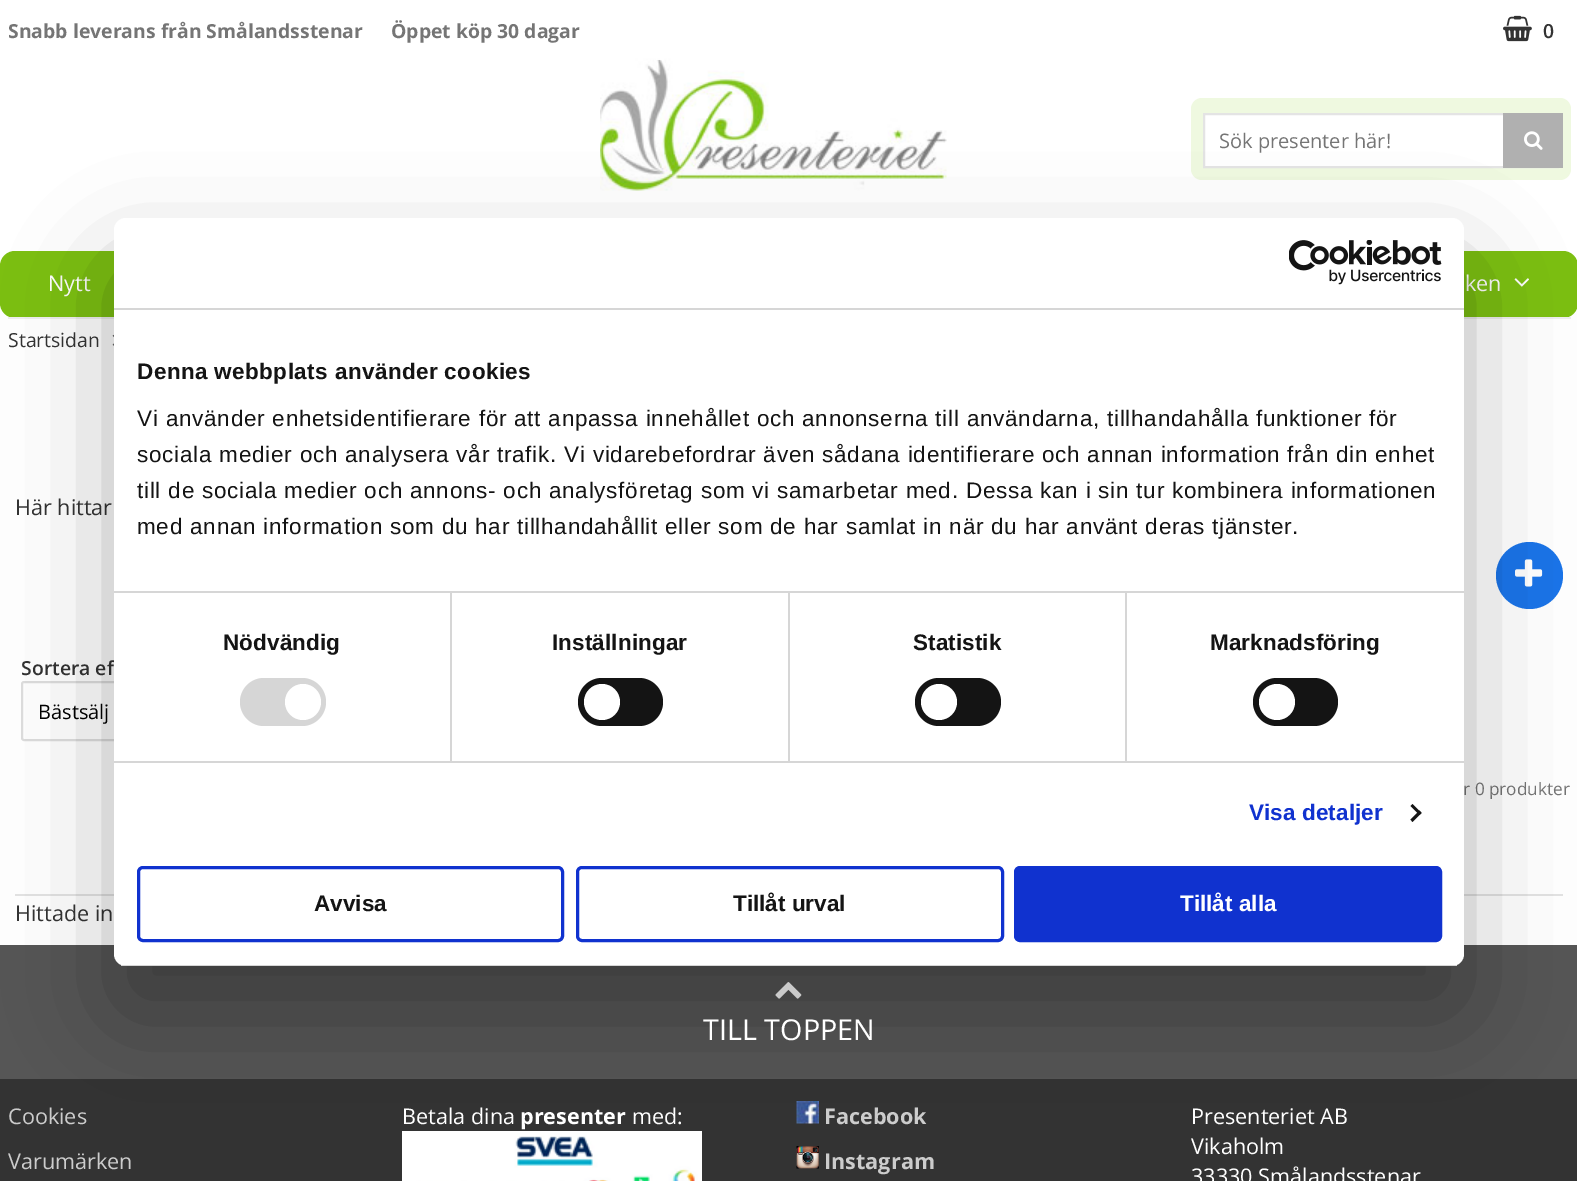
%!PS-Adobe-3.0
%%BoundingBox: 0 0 1577 1181
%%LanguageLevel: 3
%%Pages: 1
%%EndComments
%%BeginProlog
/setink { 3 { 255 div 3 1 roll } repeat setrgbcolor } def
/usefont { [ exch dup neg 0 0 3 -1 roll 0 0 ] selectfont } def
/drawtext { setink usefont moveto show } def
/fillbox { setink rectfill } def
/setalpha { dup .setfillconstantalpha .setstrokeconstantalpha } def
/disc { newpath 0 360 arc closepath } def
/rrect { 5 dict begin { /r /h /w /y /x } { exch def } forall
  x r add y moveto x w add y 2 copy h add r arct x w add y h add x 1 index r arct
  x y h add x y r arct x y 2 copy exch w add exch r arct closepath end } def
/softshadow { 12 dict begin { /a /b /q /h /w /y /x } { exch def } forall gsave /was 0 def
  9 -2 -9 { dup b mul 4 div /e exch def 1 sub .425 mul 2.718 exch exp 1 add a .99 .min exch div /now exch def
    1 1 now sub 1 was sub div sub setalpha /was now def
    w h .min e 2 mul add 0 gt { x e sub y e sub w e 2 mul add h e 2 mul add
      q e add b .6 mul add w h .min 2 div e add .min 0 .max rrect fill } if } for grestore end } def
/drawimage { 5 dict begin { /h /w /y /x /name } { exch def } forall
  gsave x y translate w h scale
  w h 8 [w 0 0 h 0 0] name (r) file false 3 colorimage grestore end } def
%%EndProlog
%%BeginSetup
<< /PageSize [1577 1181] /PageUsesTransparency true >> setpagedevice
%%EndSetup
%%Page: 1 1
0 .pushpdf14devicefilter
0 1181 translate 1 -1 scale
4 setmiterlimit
0 0 1577 1181 255 255 255 fillbox
(assets/img2.rgb) 600 58 347 133 drawimage
0.95 setalpha
656 58 6 2 255 255 255 fillbox
1 setalpha
(Snabb leverans från Smålandsstenar) 8 38 /OpenSans-Bold 19.4 117 117 117 drawtext
(Öppet köp 30 dagar) 391 38 /OpenSans-Bold 19.4 117 117 117 drawtext
(assets/img1.rgb) 1503 15 29 27 drawimage
(0) 1543 38 /OpenSans-SemiBold 19.4 51 51 51 drawtext
239 249 224 setink
1191 98 380 82 11 rrect fill
1205 115 298 51 255 255 255 fillbox
228 228 228 setink
2 setlinewidth
1204 114 354 53 rectstroke
(Sök presenter här!) 1219 148 /OpenSans-Regular 20 117 117 117 drawtext
1503 113 60 55 176 176 176 fillbox
(assets/img3.rgb) 1524 131 19 19 drawimage
124 191 17 setink
0 251 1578 67 15 rrect fill
8 317 1563 2 239 239 239 fillbox
(Nytt) 48 291 /OpenSans-Regular 21.6 255 255 255 drawtext
(ken) 1465 291 /OpenSans-Regular 21.6 255 255 255 drawtext
(assets/img4.rgb) 1514 278 15 9 drawimage
(Startsidan) 8 347 /OpenSans-Regular 19.4 51 51 51 drawtext
(assets/img5.rgb) 112 334 2 12 drawimage
(Här hittar) 15 515 /OpenSans-Regular 21.6 51 51 51 drawtext
26 116 233 setink
1529.5 575.5 33.5 disc fill
(assets/img6.rgb) 1515 559 28 28 drawimage
(Sortera ef) 21 675 /OpenSans-SemiBold 19.4 51 51 51 drawtext
221 221 221 setink
22 682 237 58 2 rrect stroke
(Bästsälj) 38 719 /OpenSans-Regular 20 0 0 0 drawtext
(r 0 produkter) 1463 795 /OpenSans-Regular 17.25 117 117 117 drawtext
15 894 1548 2 227 227 227 fillbox
(Hittade in) 15 921 /OpenSans-Regular 21.6 51 51 51 drawtext
0 945 1577 134 86 86 86 fillbox
(assets/img8.rgb) 775 982 27 17 drawimage
0 1079 1577 102 51 51 51 fillbox
(assets/img9.rgb) 402 1131 300 50 drawimage
(assets/img10.rgb) 796 1101 23 23 drawimage
(assets/img11.rgb) 796 1146 23 23 drawimage
0 0 0 setink
114 266 1350 748 12 51 0.3 softshadow
255 255 255 setink
114 218 1350 748 12 rrect fill
114 308 1350 2 214 214 214 fillbox
(assets/img7.rgb) 1289 240 153 45 drawimage
114 591 1350 2 214 214 214 fillbox
/LiberationSans-Bold 22.5 usefont
20 20 20 setink
137 379 moveto 0.4 0 (Denna webbplats använder cookies) ashow
/LiberationSans-Regular 22.5 usefont
137 426 moveto 0.75 0 (Vi använder enhetsidentifierare för att anpassa innehållet och annonserna till användarna, tillhandahålla funktioner för) ashow
137 462 moveto 0.75 0 (sociala medier och analysera vår trafik. Vi vidarebefordrar även sådana identifierare och annan information från din enhet) ashow
137 498 moveto 0.75 0 (till de sociala medier och annons- och analysföretag som vi samarbetar med. Dessa kan i sin tur kombinera informationen) ashow
137 534 moveto 0.75 0 (med annan information som du har tillhandahållit eller som de har samlat in när du har använt deras tjänster.) ashow
114 761 1350 2 214 214 214 fillbox
450 593 2 168 214 214 214 fillbox
/LiberationSans-Bold 22.5 usefont
20 20 20 setink
223 650 moveto 0.1 0 (Nödvändig) ashow
214 214 214 setink
240 678 86 48 24 rrect fill
255 255 255 setink
303 702 18 disc fill
788 593 2 168 214 214 214 fillbox
20 20 20 setink
552 650 moveto 0.1 0 (Inställningar) ashow
578 678 85 48 24 rrect fill
255 255 255 setink
602 702 18 disc fill
1125 593 2 168 214 214 214 fillbox
20 20 20 setink
913 650 moveto 0.1 0 (Statistik) ashow
915 678 86 48 24 rrect fill
255 255 255 setink
939 702 18 disc fill
20 20 20 setink
1210 650 moveto 0.1 0 (Marknadsföring) ashow
1253 678 85 48 24 rrect fill
255 255 255 setink
1277 702 18 disc fill
16 50 207 setink
1249 820 moveto 0.1 0 (Visa detaljer) ashow
20 20 20 setink
1412.5 804 moveto 1421.5 813 lineto 1419.5 815 lineto 1410.5 806 lineto closepath fill
1419.5 810.5 moveto 1421.5 813 lineto 1412.5 822 lineto 1410.5 819.5 lineto closepath fill
gsave
114 218 1350 748 12 rrect clip newpath
114 965 1350 1 214 214 214 fillbox
grestore
16 50 207 setink
3 setlinewidth
138.5 867.5 424 73 4.5 rrect stroke
(Avvisa) 314 911 /LiberationSans-Bold 22.5 20 20 20 drawtext
16 50 207 setink
577.5 867.5 425 73 4.5 rrect stroke
(Tillåt urval) 733 911 /LiberationSans-Bold 22.5 20 20 20 drawtext
16 50 207 setink
1015.5 867.5 425 73 4.5 rrect gsave fill grestore
stroke
(Tillåt alla) 1180 911 /LiberationSans-Bold 22.5 255 255 255 drawtext
(TILL TOPPEN) 703 1040 /OpenSans-Regular 28.75 255 255 255 drawtext
(Cookies) 8 1124 /OpenSans-Regular 21.6 204 204 204 drawtext
(Varumärken) 8 1169 /OpenSans-Regular 21.6 204 204 204 drawtext
(Betala dina) 402 1124 /OpenSans-Regular 21.6 255 255 255 drawtext
(presenter) 520 1124 /OpenSans-Bold 21.6 255 255 255 drawtext
(med:) 632 1124 /OpenSans-Regular 21.6 255 255 255 drawtext
(Facebook) 824 1124 /OpenSans-Bold 21.6 204 204 204 drawtext
(Instagram) 824 1169 /OpenSans-Bold 21.6 204 204 204 drawtext
(Presenteriet AB) 1191 1124 /OpenSans-Regular 21.6 255 255 255 drawtext
(Vikaholm) 1191 1154 /OpenSans-Regular 21.6 255 255 255 drawtext
(33330 Smålandsstenar) 1191 1184 /OpenSans-Regular 21.6 255 255 255 drawtext
.poppdf14devicefilter showpage
%%EOF
